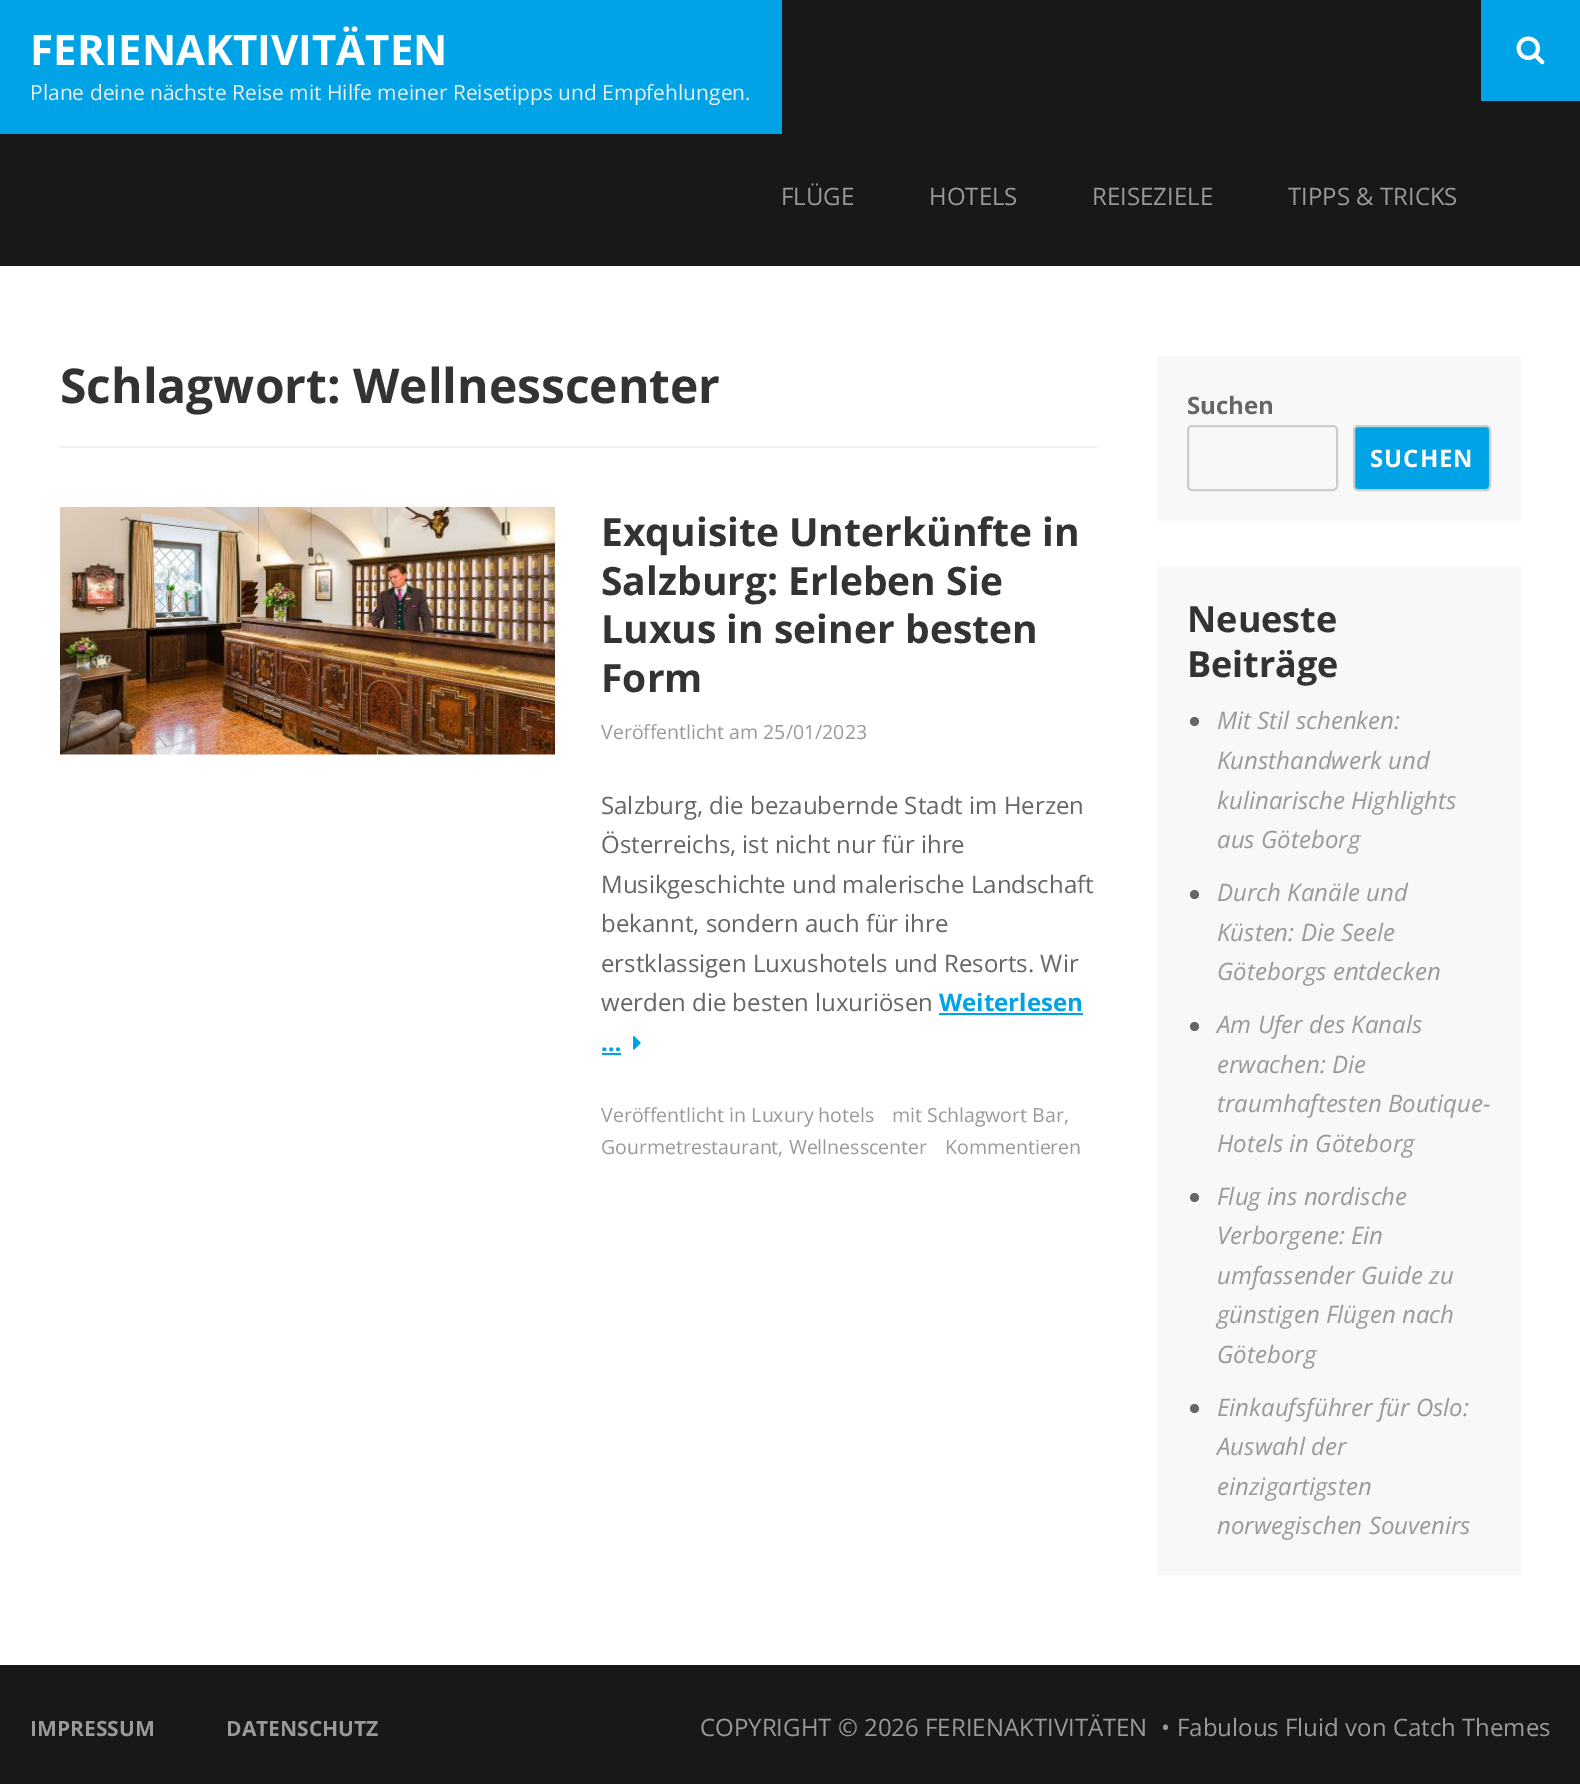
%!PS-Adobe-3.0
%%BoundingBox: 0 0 1580 1784
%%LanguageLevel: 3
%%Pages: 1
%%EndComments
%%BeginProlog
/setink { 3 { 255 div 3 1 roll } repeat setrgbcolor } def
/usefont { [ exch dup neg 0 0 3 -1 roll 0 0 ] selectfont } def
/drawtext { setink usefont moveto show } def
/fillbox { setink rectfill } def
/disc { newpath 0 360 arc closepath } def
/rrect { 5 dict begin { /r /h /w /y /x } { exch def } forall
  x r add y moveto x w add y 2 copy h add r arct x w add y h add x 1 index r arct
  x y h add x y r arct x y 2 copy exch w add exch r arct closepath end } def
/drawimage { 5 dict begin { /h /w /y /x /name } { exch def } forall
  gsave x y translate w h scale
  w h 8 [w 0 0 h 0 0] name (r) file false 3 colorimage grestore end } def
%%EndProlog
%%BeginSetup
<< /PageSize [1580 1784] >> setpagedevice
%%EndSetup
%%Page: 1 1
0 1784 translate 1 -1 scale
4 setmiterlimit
0 0 1580 1784 255 255 255 fillbox
0 0 1580 266 24 24 24 fillbox
0 0 782 134 0 163 230 fillbox
(FERIENAKTIVITÄTEN) 30 65 /OpenSans-Bold 42 255 255 255 drawtext
(Plane deine nächste Reise mit Hilfe meiner Reisetipps und Empfehlungen.) 30 100 /OpenSans-Regular 21 238 238 238 drawtext
1481 0 99 101 0 163 230 fillbox
(assets/img1.rgb) 1516 36 29 29 drawimage
(FLÜGE) 781 205 /OpenSans-Regular 24 153 153 153 drawtext
(HOTELS) 929 205 /OpenSans-Regular 24 153 153 153 drawtext
(REISEZIELE) 1092 205 /OpenSans-Regular 24 153 153 153 drawtext
(TIPPS & TRICKS) 1288 205 /OpenSans-Regular 24 153 153 153 drawtext
60 446 1037 2 241 241 241 fillbox
(Schlagwort: Wellnesscenter) 60 403 /OpenSans-Bold 48 51 51 51 drawtext
(assets/img2.rgb) 60 507 495 248 drawimage
(Exquisite Unterkünfte in) 601 546 /OpenSans-Bold 39 51 51 51 drawtext
(Salzburg: Erleben Sie) 601 595 /OpenSans-Bold 39 51 51 51 drawtext
(Luxus in seiner besten) 601 643 /OpenSans-Bold 39 51 51 51 drawtext
(Form) 601 692 /OpenSans-Bold 39 51 51 51 drawtext
(Veröffentlicht am 25/01/2023) 601 739 /OpenSans-Regular 19.5 153 153 153 drawtext
(Salzburg, die bezaubernde Stadt im Herzen) 601 814 /OpenSans-Regular 24 102 102 102 drawtext
(Österreichs, ist nicht nur für ihre) 601 853 /OpenSans-Regular 24 102 102 102 drawtext
(Musikgeschichte und malerische Landschaft) 601 893 /OpenSans-Regular 24 102 102 102 drawtext
(bekannt, sondern auch für ihre) 601 932 /OpenSans-Regular 24 102 102 102 drawtext
(erstklassigen Luxushotels und Resorts. Wir) 601 972 /OpenSans-Regular 24 102 102 102 drawtext
(werden die besten luxuriösen) 601 1011 /OpenSans-Regular 24 102 102 102 drawtext
(Weiterlesen) 939 1011 /OpenSans-Bold 24 0 163 230 drawtext
939 1013 144 2 0 163 230 fillbox
(…) 601 1051 /OpenSans-Bold 24 0 163 230 drawtext
602 1053 19 2 0 163 230 fillbox
(assets/img3.rgb) 633 1036 8 14 drawimage
(Veröffentlicht in Luxury hotels) 601 1122 /OpenSans-Regular 19.5 153 153 153 drawtext
(mit Schlagwort Bar,) 892 1122 /OpenSans-Regular 19.5 153 153 153 drawtext
(Gourmetrestaurant, Wellnesscenter) 601 1154 /OpenSans-Regular 19.5 153 153 153 drawtext
(Kommentieren) 945 1154 /OpenSans-Regular 19.5 153 153 153 drawtext
1157 356 364 165 248 248 248 fillbox
(Suchen) 1187 414 /OpenSans-Bold 24 102 102 102 drawtext
204 204 204 setink
2 setlinewidth
1188 426 149 64 4 rrect stroke
0 163 230 setink
1354 426 136 64 4 rrect gsave fill grestore
204 204 204 setink
stroke
255 255 255 setink
1370 467 moveto 1 0 (SUCHEN) ashow
1157 566 364 1009 248 248 248 fillbox
(Neueste) 1187 632 /OpenSans-Bold 36 51 51 51 drawtext
(Beiträge) 1187 677 /OpenSans-Bold 36 51 51 51 drawtext
102 102 102 setink
1194.5 721.5 4.5 disc fill
(Mit Stil schenken:) 1217 729 /OpenSans-Italic 24 153 153 153 drawtext
(Kunsthandwerk und) 1217 769 /OpenSans-Italic 24 153 153 153 drawtext
(kulinarische Highlights) 1217 809 /OpenSans-Italic 24 153 153 153 drawtext
(aus Göteborg) 1217 848 /OpenSans-Italic 24 153 153 153 drawtext
102 102 102 setink
1194.5 894.5 4.5 disc fill
(Durch Kanäle und) 1217 901 /OpenSans-Italic 24 153 153 153 drawtext
(Küsten: Die Seele) 1217 941 /OpenSans-Italic 24 153 153 153 drawtext
(Göteborgs entdecken) 1217 980 /OpenSans-Italic 24 153 153 153 drawtext
102 102 102 setink
1194.5 1026.5 4.5 disc fill
(Am Ufer des Kanals) 1217 1033 /OpenSans-Italic 24 153 153 153 drawtext
(erwachen: Die) 1217 1073 /OpenSans-Italic 24 153 153 153 drawtext
(traumhaftesten Boutique-) 1217 1112 /OpenSans-Italic 24 153 153 153 drawtext
(Hotels in Göteborg) 1217 1152 /OpenSans-Italic 24 153 153 153 drawtext
102 102 102 setink
1194.5 1197.5 4.5 disc fill
(Flug ins nordische) 1217 1205 /OpenSans-Italic 24 153 153 153 drawtext
(Verborgene: Ein) 1217 1244 /OpenSans-Italic 24 153 153 153 drawtext
(umfassender Guide zu) 1217 1284 /OpenSans-Italic 24 153 153 153 drawtext
(günstigen Flügen nach) 1217 1323 /OpenSans-Italic 24 153 153 153 drawtext
(Göteborg) 1217 1363 /OpenSans-Italic 24 153 153 153 drawtext
102 102 102 setink
1194.5 1408.5 4.5 disc fill
(Einkaufsführer für Oslo:) 1217 1416 /OpenSans-Italic 24 153 153 153 drawtext
(Auswahl der) 1217 1455 /OpenSans-Italic 24 153 153 153 drawtext
(einzigartigsten) 1217 1495 /OpenSans-Italic 24 153 153 153 drawtext
(norwegischen Souvenirs) 1217 1534 /OpenSans-Italic 24 153 153 153 drawtext
0 1665 1580 119 24 24 24 fillbox
(IMPRESSUM) 30 1736 /OpenSans-Bold 21 153 153 153 drawtext
gsave
30 1707 348 42 rectclip
(DATENSCHUTZ) 226 1736 /OpenSans-Bold 21 153 153 153 drawtext
grestore
(COPYRIGHT © 2026 FERIENAKTIVITÄTEN) 700 1736 /OpenSans-Regular 24 153 153 153 drawtext
(•) 1161 1736 /OpenSans-Regular 24 153 153 153 drawtext
(Fabulous Fluid von Catch Themes) 1177 1736 /OpenSans-Regular 24 153 153 153 drawtext
showpage
%%EOF
